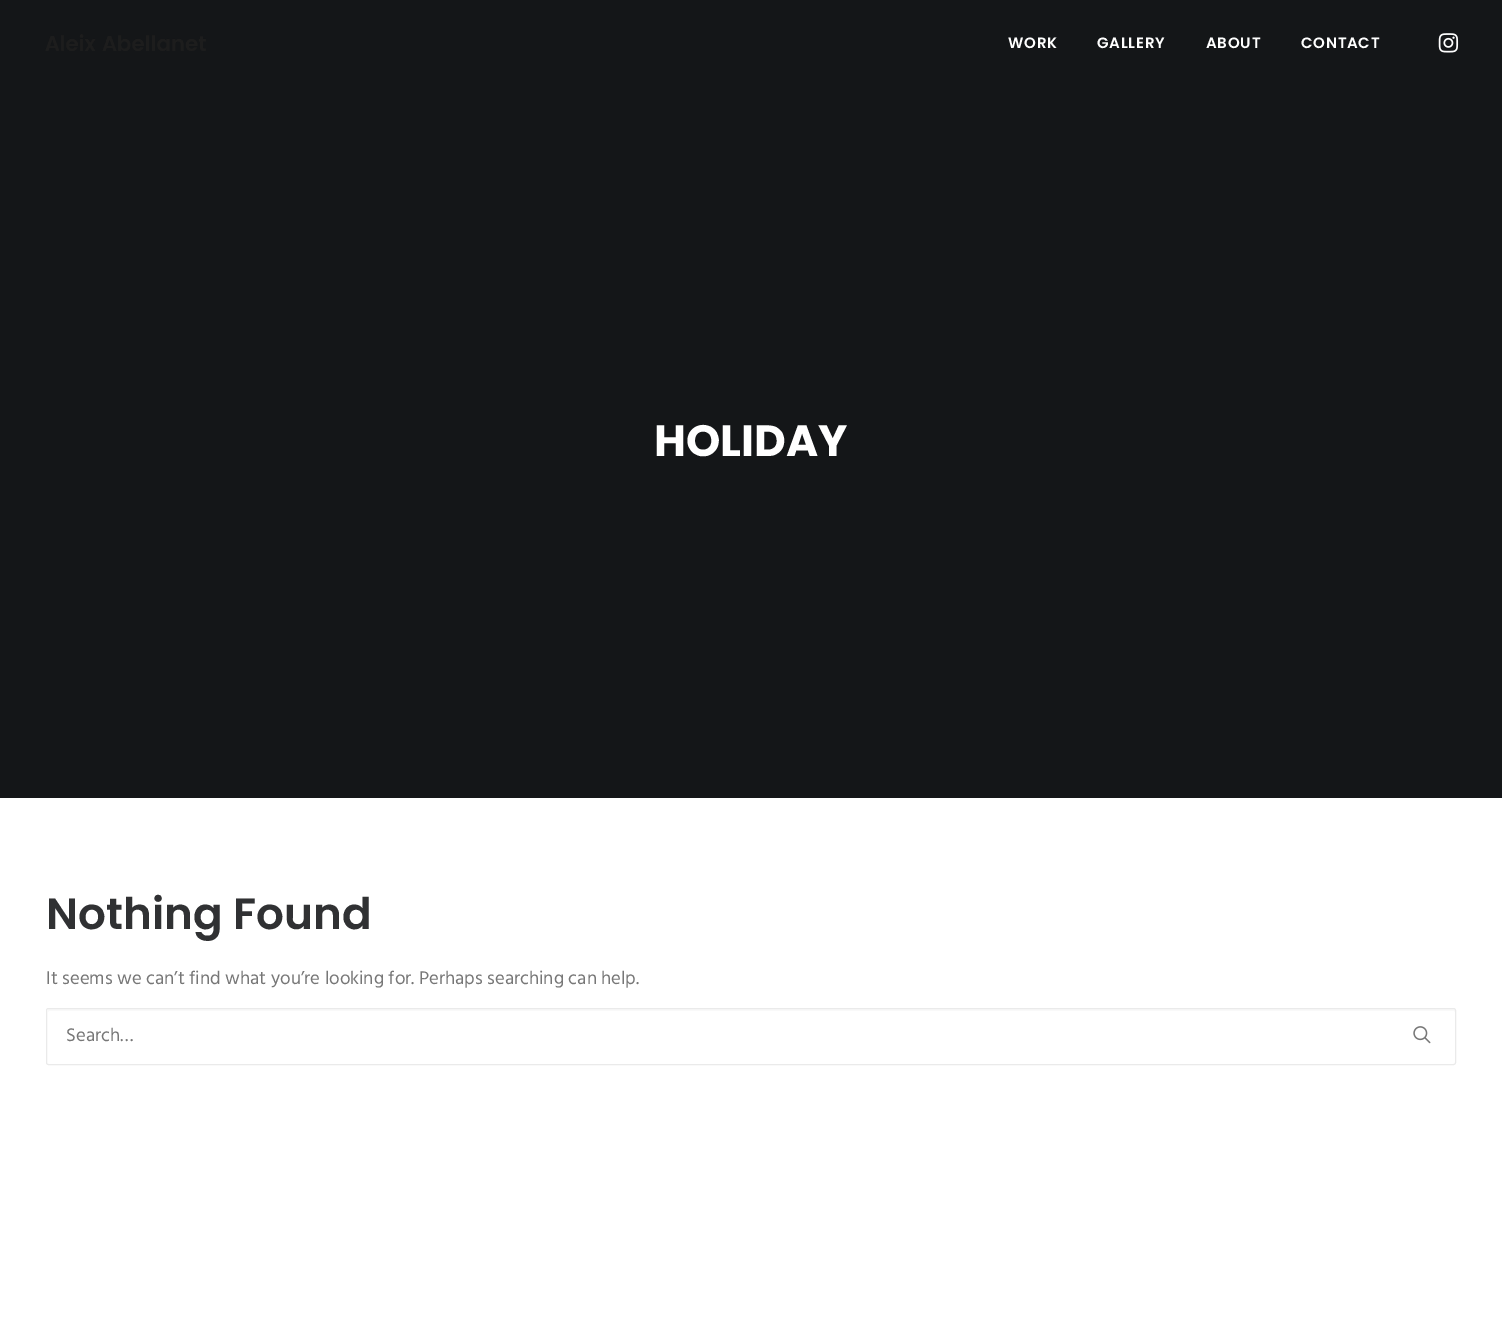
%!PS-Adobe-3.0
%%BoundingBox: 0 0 1502 1329
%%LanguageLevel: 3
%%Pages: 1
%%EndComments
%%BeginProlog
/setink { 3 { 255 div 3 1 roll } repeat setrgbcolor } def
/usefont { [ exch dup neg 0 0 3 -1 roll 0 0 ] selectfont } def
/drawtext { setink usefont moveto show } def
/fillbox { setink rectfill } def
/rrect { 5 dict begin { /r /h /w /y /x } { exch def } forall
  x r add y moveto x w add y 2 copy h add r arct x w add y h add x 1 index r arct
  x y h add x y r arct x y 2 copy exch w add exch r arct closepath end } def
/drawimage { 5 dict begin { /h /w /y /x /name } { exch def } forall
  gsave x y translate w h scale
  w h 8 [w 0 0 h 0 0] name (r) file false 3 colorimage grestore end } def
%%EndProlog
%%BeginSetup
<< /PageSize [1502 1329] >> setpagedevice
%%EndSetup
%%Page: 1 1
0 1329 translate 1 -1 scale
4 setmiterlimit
0 0 1502 1329 20 22 24 fillbox
(assets/img1.rgb) 45 34 161 17 drawimage
/Poppins-SemiBold 15 usefont
255 255 255 setink
1008 48 moveto 0.75 0 (WORK) ashow
1097 48 moveto 0.75 0 (GALLERY) ashow
1206 48 moveto 0.75 0 (ABOUT) ashow
1301 48 moveto 0.75 0 (CONTACT) ashow
(assets/img2.rgb) 1438 33 21 20 drawimage
(HOLIDAY) 654 456 /Poppins-Bold 43.75 255 255 255 drawtext
0 798 1502 531 255 255 255 fillbox
(Nothing Found) 46 929 /Poppins-SemiBold 43.75 48 49 51 drawtext
(It seems we can’t find what you’re looking for. Perhaps searching can help.) 46 984 /Hind-Regular 18.75 119 119 119 drawtext
249 249 249 setink
49 1011 moveto 1454 1011 lineto 1455 1012 lineto 1455 1010 lineto 1454 1009 lineto 49 1009 lineto 48 1009 48 1011 48 1012 curveto closepath fill
234 234 234 setink
46.5 1008.5 1409 56 2 rrect stroke
(Search…) 66 1041 /Hind-Regular 18.75 119 119 119 drawtext
(assets/img3.rgb) 1413 1026 18 18 drawimage
showpage
%%EOF
